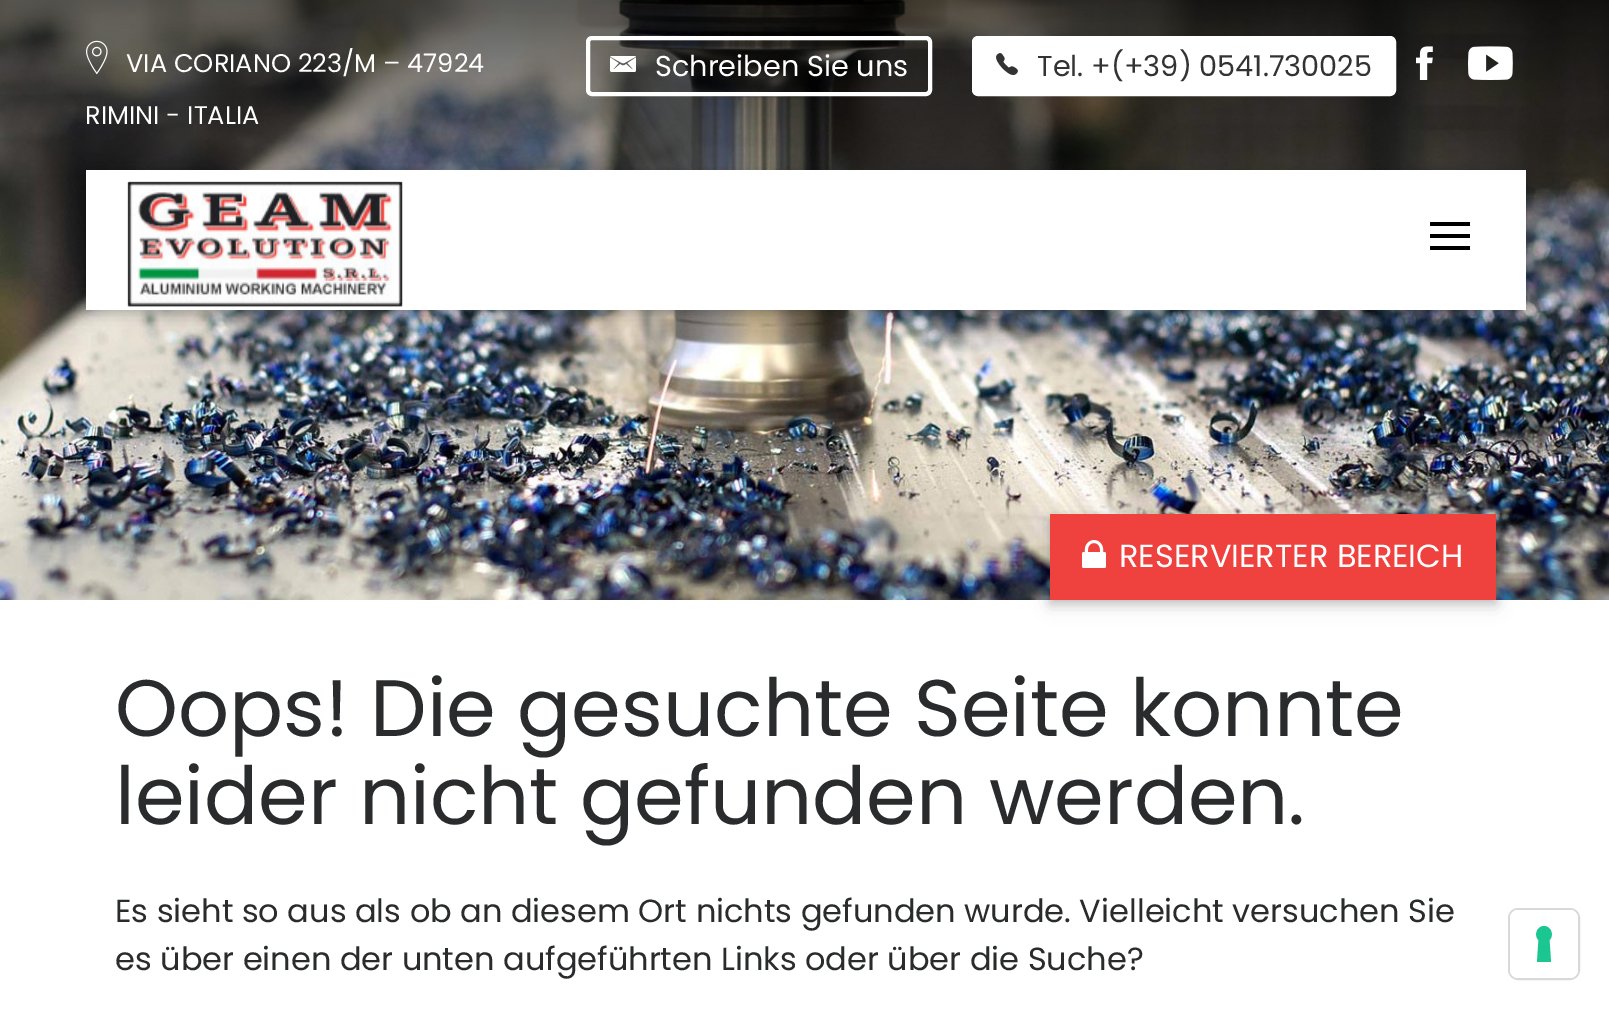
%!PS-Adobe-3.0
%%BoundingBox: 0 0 1609 1010
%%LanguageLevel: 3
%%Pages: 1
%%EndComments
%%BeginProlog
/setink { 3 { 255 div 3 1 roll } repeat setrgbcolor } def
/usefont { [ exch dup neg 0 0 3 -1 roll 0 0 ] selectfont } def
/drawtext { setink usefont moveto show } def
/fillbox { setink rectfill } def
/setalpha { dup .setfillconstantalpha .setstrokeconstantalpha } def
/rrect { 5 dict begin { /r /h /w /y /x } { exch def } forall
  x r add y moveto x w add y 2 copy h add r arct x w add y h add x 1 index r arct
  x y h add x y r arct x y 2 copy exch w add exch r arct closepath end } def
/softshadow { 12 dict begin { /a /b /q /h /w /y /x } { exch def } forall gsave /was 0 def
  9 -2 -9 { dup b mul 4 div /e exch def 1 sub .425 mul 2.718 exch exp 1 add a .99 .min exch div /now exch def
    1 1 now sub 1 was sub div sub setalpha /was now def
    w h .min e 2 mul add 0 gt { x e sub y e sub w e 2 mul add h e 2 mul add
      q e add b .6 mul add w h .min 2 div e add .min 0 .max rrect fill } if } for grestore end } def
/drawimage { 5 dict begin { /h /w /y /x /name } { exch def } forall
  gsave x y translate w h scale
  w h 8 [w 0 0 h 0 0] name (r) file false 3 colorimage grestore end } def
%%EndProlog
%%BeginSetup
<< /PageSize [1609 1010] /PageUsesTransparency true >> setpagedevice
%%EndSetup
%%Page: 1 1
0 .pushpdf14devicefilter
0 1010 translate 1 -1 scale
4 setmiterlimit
0 0 1609 1010 255 255 255 fillbox
(assets/img7.rgb) 0 0 1609 600 drawimage
(assets/img1.rgb) 86 40 22 35 drawimage
(VIA CORIANO 223/M – 47924) 126 72 /Poppins-Regular 25.6 255 255 255 drawtext
(RIMINI - ITALIA) 85 124 /Poppins-Regular 25.6 255 255 255 drawtext
4 setlinewidth
588 38 342 56 4 rrect stroke
(assets/img2.rgb) 610 56 26 16 drawimage
(Schreiben Sie uns) 655 76 /Poppins-Regular 28.75 255 255 255 drawtext
974 38 420 56 4 rrect gsave fill grestore
stroke
(assets/img3.rgb) 996 53 22 22 drawimage
(Tel. +\(+39\) 0541.730025) 1037 76 /Poppins-Regular 28.75 51 51 51 drawtext
(assets/img4.rgb) 1416 46 17 34 drawimage
(assets/img5.rgb) 1468 46 45 34 drawimage
0 0 0 setink
86 174 1440 140 0 10 0.12 softshadow
86 174 1440 140 0 5 0.16 softshadow
86 170 1440 140 255 255 255 fillbox
(assets/img6.rgb) 127 181 276 126 drawimage
0 0 0 setink
1430 238 moveto 1430 234 lineto 1470 234 lineto 1470 238 lineto closepath 1430 226 moveto 1430 222 lineto 1470 222 lineto 1470 226 lineto closepath 1430 250 moveto 1430 246 lineto 1470 246 lineto 1470 250 lineto closepath fill
1050 518 446 86 0 10 0.12 softshadow
1050 518 446 86 0 5 0.16 softshadow
1050 514 446 86 239 65 61 fillbox
(assets/img8.rgb) 1082 540 24 28 drawimage
(RESERVIERTER BEREICH) 1119 567 /Poppins-Regular 32 255 255 255 drawtext
(Oops! Die gesuchte Seite konnte) 115 736 /Poppins-Regular 80 41 43 44 drawtext
(leider nicht gefunden werden.) 115 824 /Poppins-Regular 80 41 43 44 drawtext
(Es sieht so aus als ob an diesem Ort nichts gefunden wurde. Vielleicht versuchen Sie) 115 922 /Poppins-Regular 32 41 43 44 drawtext
(es über einen der unten aufgeführten Links oder über die Suche?) 115 970 /Poppins-Regular 32 41 43 44 drawtext
217 217 217 setink
2 setlinewidth
1509 909 70 70 9 rrect stroke
255 255 255 setink
1510 910 68 68 8 rrect fill
28 198 145 setink
1544 926 moveto 1551 926 1554.5 935.5 1549.5 940 curveto 1551 962 lineto 1537 962 lineto 1538.5 940 lineto 1533.5 935.5 1537 926 1544 926 curveto closepath eofill
.poppdf14devicefilter showpage
%%EOF
